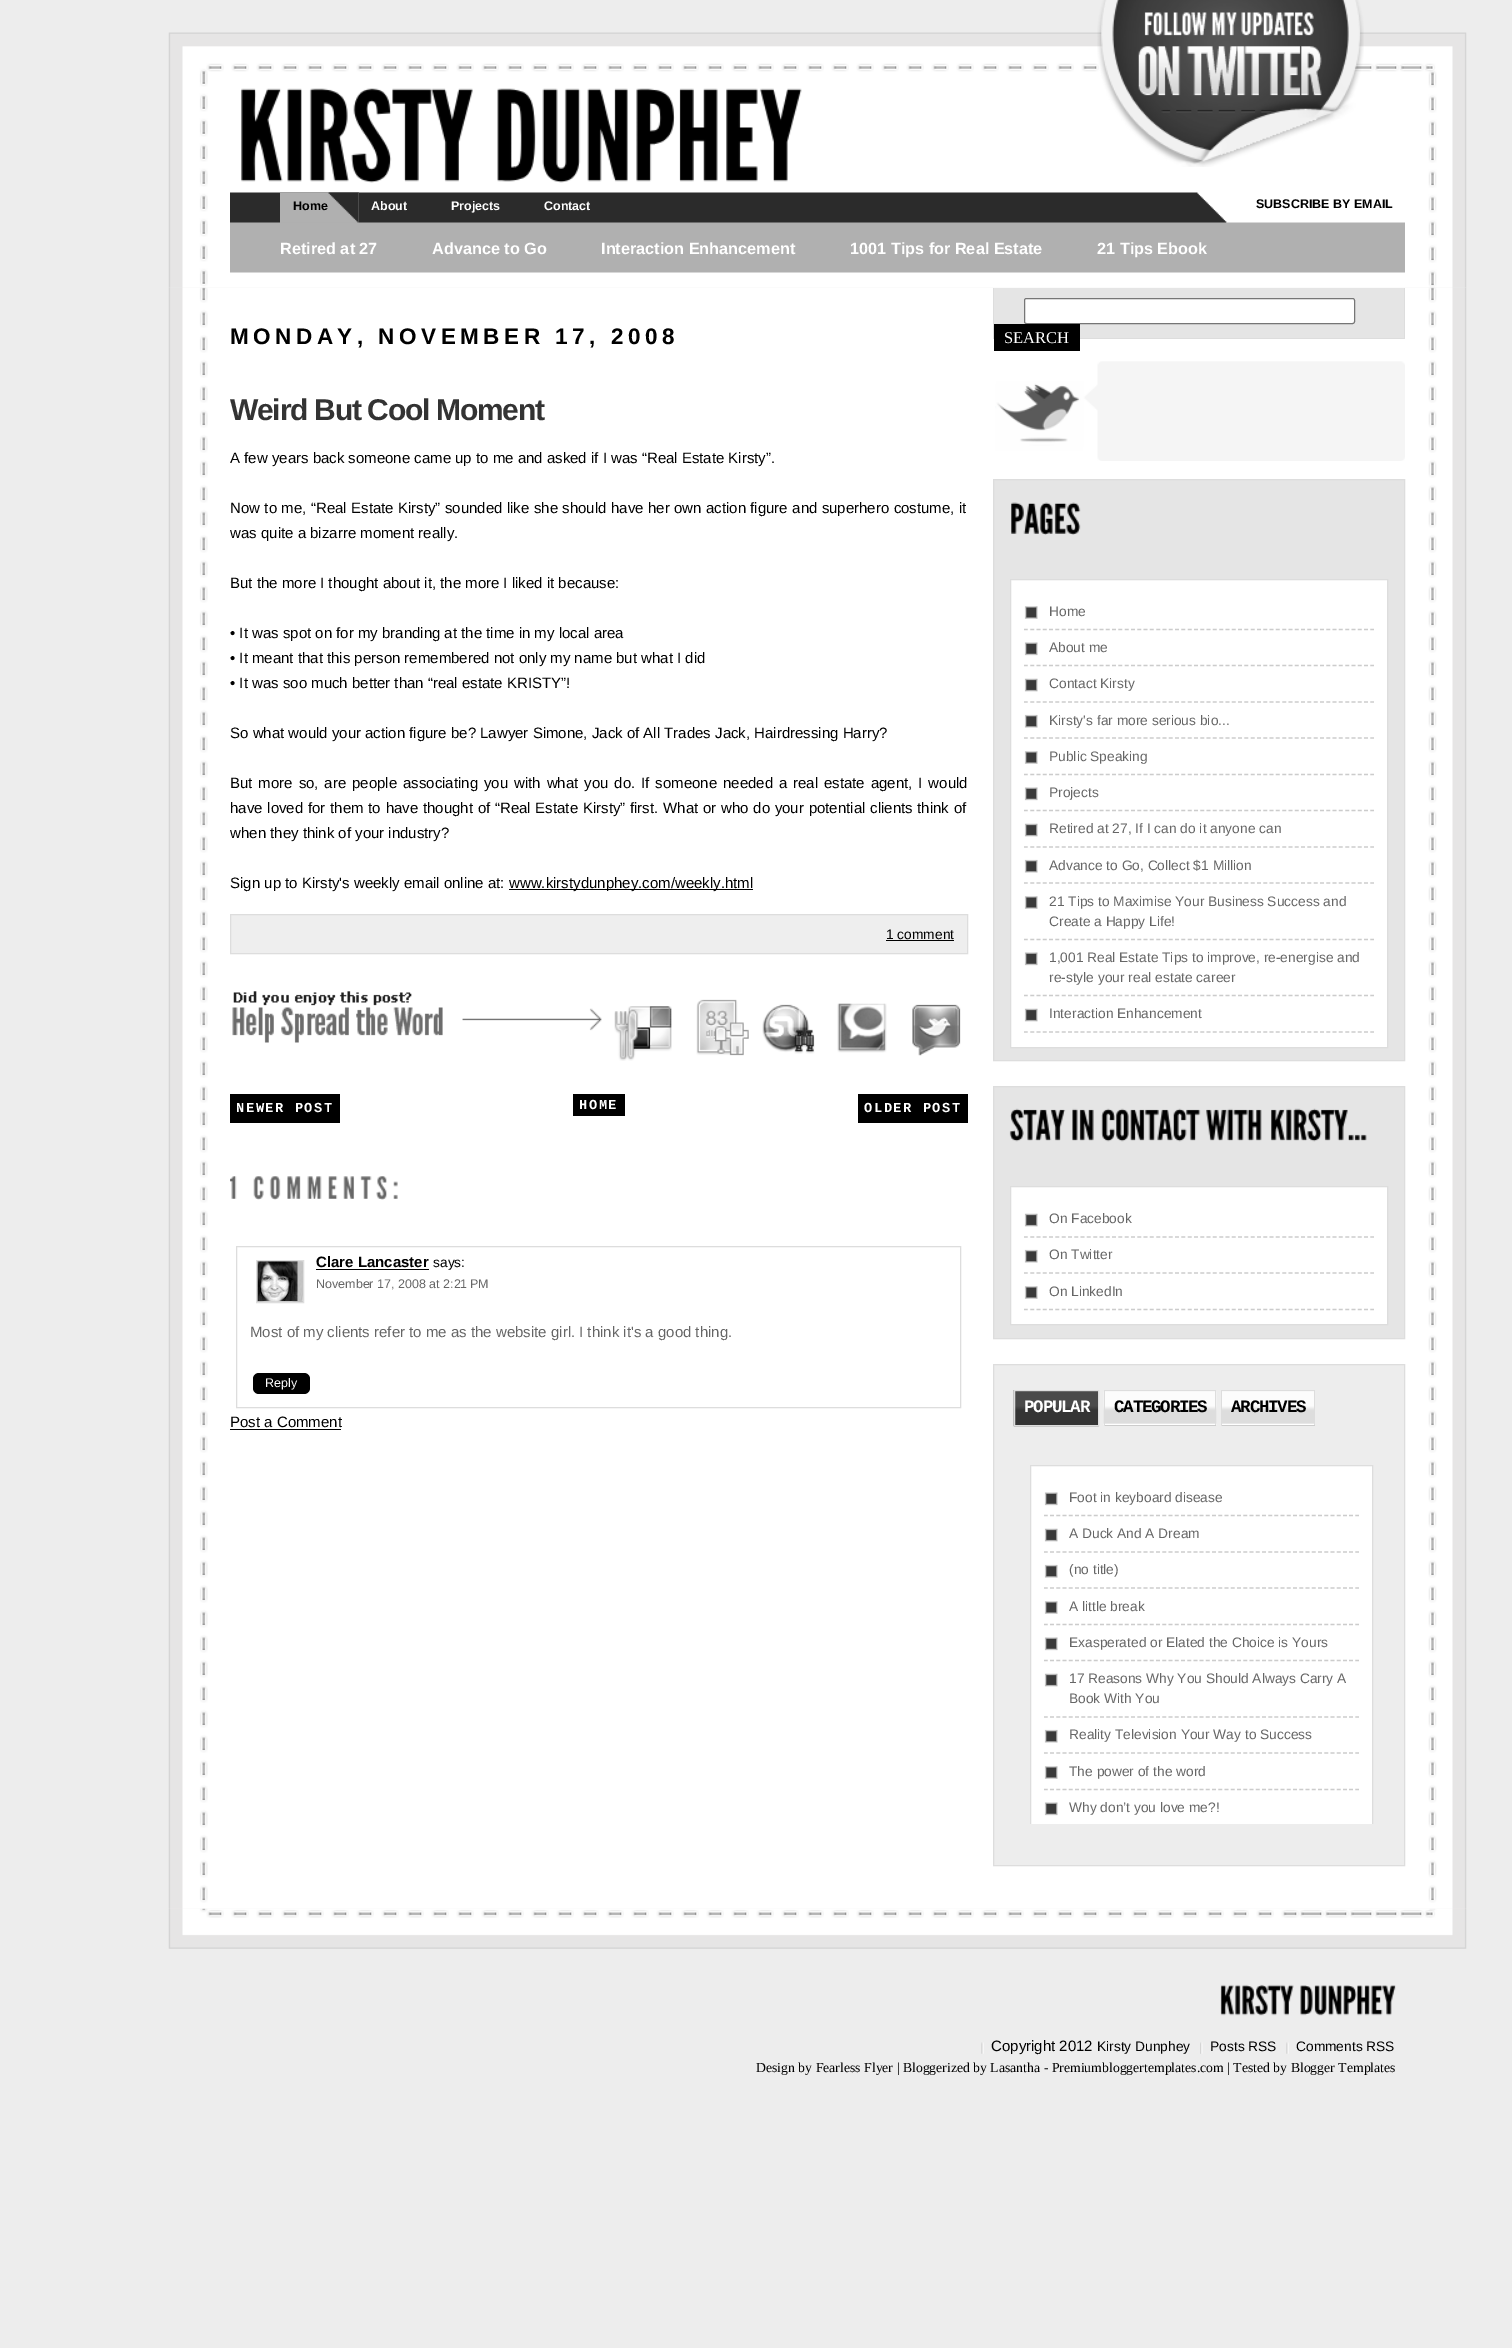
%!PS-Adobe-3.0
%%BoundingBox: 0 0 1512 2348
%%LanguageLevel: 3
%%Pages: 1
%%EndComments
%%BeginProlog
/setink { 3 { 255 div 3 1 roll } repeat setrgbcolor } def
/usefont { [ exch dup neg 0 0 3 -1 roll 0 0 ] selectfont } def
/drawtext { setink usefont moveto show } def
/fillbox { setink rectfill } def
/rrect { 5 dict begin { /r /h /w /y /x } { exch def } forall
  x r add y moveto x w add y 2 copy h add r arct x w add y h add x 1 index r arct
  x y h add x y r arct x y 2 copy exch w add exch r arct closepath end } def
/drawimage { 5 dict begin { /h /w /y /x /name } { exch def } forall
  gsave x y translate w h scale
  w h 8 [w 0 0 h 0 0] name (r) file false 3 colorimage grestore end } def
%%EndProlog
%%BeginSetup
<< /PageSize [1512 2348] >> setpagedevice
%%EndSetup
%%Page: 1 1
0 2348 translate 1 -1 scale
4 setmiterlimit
0 0 1512 2348 237 237 237 fillbox
(assets/img7.rgb) 168 287 1299 1622 drawimage
(assets/img1.rgb) 168 32 1299 256 drawimage
(assets/img2.rgb) 241 88 232 95 drawimage
(assets/img3.rgb) 497 88 305 95 drawimage
(assets/img4.rgb) 1097 0 267 167 drawimage
(assets/img5.rgb) 230 192 1175 81 drawimage
280 193 79 30 176 176 176 fillbox
(assets/img6.rgb) 280 192 79 31 drawimage
(Home) 293 210 /LiberationSans-Bold 12.5 0 0 0 drawtext
(About) 371 210 /LiberationSans-Bold 12.5 255 255 255 drawtext
(Projects) 451 210 /LiberationSans-Bold 12.5 255 255 255 drawtext
(Contact) 544 210 /LiberationSans-Bold 12.5 255 255 255 drawtext
(SUBSCRIBE BY EMAIL) 1256 208 /LiberationSans-Bold 12.5 0 0 0 drawtext
(Retired at 27) 280 254 /LiberationSans-Bold 16.25 255 255 255 drawtext
(Advance to Go) 432 254 /LiberationSans-Bold 16.25 255 255 255 drawtext
(Interaction Enhancement) 601 254 /LiberationSans-Bold 16.25 255 255 255 drawtext
(1001 Tips for Real Estate) 850 254 /LiberationSans-Bold 16.25 255 255 255 drawtext
(21 Tips Ebook) 1097 254 /LiberationSans-Bold 16.25 255 255 255 drawtext
/LiberationSans-Bold 22.5 usefont
0 0 0 setink
230 344 moveto 4.5 0 (MONDAY, NOVEMBER 17, 2008) ashow
/LiberationSans-Bold 30 usefont
51 51 51 setink
230 420 moveto -1.25 0 (Weird But Cool Moment) ashow
(A few years back someone came up to me and asked if I was “Real Estate Kirsty”.) 230 463 /LiberationSans-Regular 15 0 0 0 drawtext
230 513 moveto 0.25 0 32 (Now to me, “Real Estate Kirsty” sounded like she should have her own action figure and superhero costume, it) widthshow
(was quite a bizarre moment really.) 230 538 /LiberationSans-Regular 15 0 0 0 drawtext
(But the more I thought about it, the more I liked it because:) 230 588 /LiberationSans-Regular 15 0 0 0 drawtext
(• It was spot on for my branding at the time in my local area) 230 638 /LiberationSans-Regular 15 0 0 0 drawtext
(• It meant that this person remembered not only my name but what I did) 230 663 /LiberationSans-Regular 15 0 0 0 drawtext
(• It was soo much better than “real estate KRISTY”!) 230 688 /LiberationSans-Regular 15 0 0 0 drawtext
(So what would your action figure be? Lawyer Simone, Jack of All Trades Jack, Hairdressing Harry?) 230 738 /LiberationSans-Regular 15 0 0 0 drawtext
230 788 moveto 1.75 0 32 (But more so, are people associating you with what you do. If someone needed a real estate agent, I would) widthshow
230 813 moveto 0.6 0 32 (have loved for them to have thought of “Real Estate Kirsty” first. What or who do your potential clients think of) widthshow
(when they think of your industry?) 230 838 /LiberationSans-Regular 15 0 0 0 drawtext
(Sign up to Kirsty's weekly email online at:) 230 888 /LiberationSans-Regular 15 0 0 0 drawtext
509 889 244 1 0 0 0 fillbox
(www.kirstydunphey.com/weekly.html) 509 888 /LiberationSans-Regular 15 0 0 0 drawtext
238 238 238 setink
230.5 914.5 moveto 967.5 914.5 lineto 967.5 953.5 lineto 230.5 953.5 lineto closepath gsave fill grestore
221 221 221 setink
stroke
(1 comment) 886 939 /LiberationSans-Regular 13.75 0 0 0 drawtext
886 940 68 1 0 0 0 fillbox
(assets/img8.rgb) 232 991 370 52 drawimage
(assets/img9.rgb) 614 1006 58 55 drawimage
(assets/img10.rgb) 696 999 53 57 drawimage
(assets/img11.rgb) 762 1004 53 50 drawimage
(assets/img12.rgb) 837 1003 50 50 drawimage
(assets/img13.rgb) 912 1004 49 52 drawimage
230 1094 110 29 0 0 0 fillbox
/LiberationMono-Bold 13.75 usefont
255 255 255 setink
236 1112 moveto 1.5 0 (NEWER POST) ashow
573 1094 52 22 0 0 0 fillbox
255 255 255 setink
579 1109 moveto 1.5 0 (HOME) ashow
858 1094 110 29 0 0 0 fillbox
255 255 255 setink
864 1112 moveto 1.5 0 (OLDER POST) ashow
(assets/img14.rgb) 230 1176 7 23 drawimage
(assets/img15.rgb) 253 1176 145 24 drawimage
221 221 221 setink
236.5 1246.5 724 161 rectstroke
(assets/img16.rgb) 257 1261 46 41 drawimage
256.5 1260.5 47 42 rectstroke
(assets/img17.rgb) 257 1261 41 41 drawimage
(Clare Lancaster) 316 1267 /LiberationSans-Bold 15 0 0 0 drawtext
316 1269 113 1 0 0 0 fillbox
(says:) 433 1267 /LiberationSans-Regular 13.75 0 0 0 drawtext
(November 17, 2008 at 2:21 PM) 316 1288 /LiberationSans-Regular 12.5 102 102 102 drawtext
0 0 0 setink
253 1373 57 21 6 rrect fill
(Reply) 265 1387 /LiberationSans-Regular 12.5 255 255 255 drawtext
(Most of my clients refer to me as the website girl. I think it's a good thing.) 250 1337 /LiberationSans-Regular 15 102 102 102 drawtext
(Post a Comment) 230 1427 /LiberationSans-Regular 15 0 0 0 drawtext
230 1429 111 1 0 0 0 fillbox
994 288 410 50 229 229 229 fillbox
1404 288 1 51 221 221 221 fillbox
1080 338 325 1 221 221 221 fillbox
993 288 1 51 221 221 221 fillbox
255 255 255 setink
1024.5 298.5 330 25 2 rrect gsave fill grestore
118 118 118 setink
stroke
994 324 86 27 0 0 0 fillbox
(SEARCH) 1004 343 /LiberationSerif-Regular 16.5 255 255 255 drawtext
(assets/img18.rgb) 995 361 410 100 drawimage
229 229 229 setink
993.5 479.5 moveto 1404.5 479.5 lineto 1404.5 1060.5 lineto 993.5 1060.5 lineto closepath gsave fill grestore
221 221 221 setink
stroke
(assets/img19.rgb) 1011 502 70 33 drawimage
255 255 255 setink
1010.5 579.5 moveto 1387.5 579.5 lineto 1387.5 1047.5 lineto 1010.5 1047.5 lineto closepath gsave fill grestore
221 221 221 setink
stroke
(assets/img20.rgb) 1024 606 14 13 drawimage
204 204 204 setink
1.2 setlinewidth
[3.75 2.55] 0 setdash
1024 629.5 moveto 1374 629.5 lineto stroke
(Home) 1049 616 /LiberationSans-Regular 13.75 102 102 102 drawtext
(assets/img21.rgb) 1024 642 14 14 drawimage
204 204 204 setink
1024 665.5 moveto 1374 665.5 lineto stroke
(About me) 1049 652 /LiberationSans-Regular 13.75 102 102 102 drawtext
(assets/img22.rgb) 1024 678 14 14 drawimage
204 204 204 setink
1024 702 moveto 1374 702 lineto stroke
(Contact Kirsty) 1049 688 /LiberationSans-Regular 13.75 102 102 102 drawtext
(assets/img23.rgb) 1024 714 14 14 drawimage
204 204 204 setink
1024 738 moveto 1374 738 lineto stroke
(Kirsty's far more serious bio...) 1049 725 /LiberationSans-Regular 13.75 102 102 102 drawtext
(assets/img20.rgb) 1024 751 14 13 drawimage
204 204 204 setink
1024 774.5 moveto 1374 774.5 lineto stroke
(Public Speaking) 1049 761 /LiberationSans-Regular 13.75 102 102 102 drawtext
(assets/img21.rgb) 1024 787 14 14 drawimage
204 204 204 setink
1024 810.5 moveto 1374 810.5 lineto stroke
(Projects) 1049 797 /LiberationSans-Regular 13.75 102 102 102 drawtext
(assets/img22.rgb) 1024 823 14 14 drawimage
204 204 204 setink
1024 847 moveto 1374 847 lineto stroke
(Retired at 27, If I can do it anyone can) 1049 833 /LiberationSans-Regular 13.75 102 102 102 drawtext
(assets/img23.rgb) 1024 859 14 14 drawimage
204 204 204 setink
1024 883 moveto 1374 883 lineto stroke
(Advance to Go, Collect $1 Million) 1049 870 /LiberationSans-Regular 13.75 102 102 102 drawtext
(assets/img20.rgb) 1024 896 14 13 drawimage
204 204 204 setink
1024 939.5 moveto 1374 939.5 lineto stroke
(21 Tips to Maximise Your Business Success and) 1049 906 /LiberationSans-Regular 13.75 102 102 102 drawtext
(Create a Happy Life!) 1049 926 /LiberationSans-Regular 13.75 102 102 102 drawtext
(assets/img21.rgb) 1024 952 14 14 drawimage
204 204 204 setink
1024 995.5 moveto 1374 995.5 lineto stroke
(1,001 Real Estate Tips to improve, re-energise and) 1049 962 /LiberationSans-Regular 13.75 102 102 102 drawtext
(re-style your real estate career) 1049 982 /LiberationSans-Regular 13.75 102 102 102 drawtext
(assets/img22.rgb) 1024 1008 14 14 drawimage
204 204 204 setink
1024 1032 moveto 1374 1032 lineto stroke
(Interaction Enhancement) 1049 1018 /LiberationSans-Regular 13.75 102 102 102 drawtext
229 229 229 setink
993.5 1086.5 moveto 1404.5 1086.5 lineto 1404.5 1338.5 lineto 993.5 1338.5 lineto closepath gsave fill grestore
221 221 221 setink
1 setlinewidth
[] 0 setdash
stroke
(assets/img24.rgb) 1009 1108 57 34 drawimage
(assets/img25.rgb) 1072 1108 22 33 drawimage
(assets/img26.rgb) 1101 1108 100 34 drawimage
(assets/img27.rgb) 1206 1108 56 33 drawimage
(assets/img28.rgb) 1271 1108 96 34 drawimage
255 255 255 setink
1010.5 1186.5 moveto 1387.5 1186.5 lineto 1387.5 1324.5 lineto 1010.5 1324.5 lineto closepath gsave fill grestore
221 221 221 setink
stroke
(assets/img22.rgb) 1024 1213 14 14 drawimage
204 204 204 setink
1.2 setlinewidth
[3.75 2.55] 0 setdash
1024 1237 moveto 1374 1237 lineto stroke
(On Facebook) 1049 1223 /LiberationSans-Regular 13.75 102 102 102 drawtext
(assets/img23.rgb) 1024 1249 14 14 drawimage
204 204 204 setink
1024 1273 moveto 1374 1273 lineto stroke
(On Twitter) 1049 1259 /LiberationSans-Regular 13.75 102 102 102 drawtext
(assets/img20.rgb) 1024 1286 14 13 drawimage
204 204 204 setink
1024 1309.5 moveto 1374 1309.5 lineto stroke
(On LinkedIn) 1049 1296 /LiberationSans-Regular 13.75 102 102 102 drawtext
237 237 237 setink
993.5 1364.5 moveto 1404.5 1364.5 lineto 1404.5 1865.5 lineto 993.5 1865.5 lineto closepath gsave fill grestore
221 221 221 setink
1 setlinewidth
[] 0 setdash
stroke
(assets/img29.rgb) 1013 1390 86 37 drawimage
1014.5 1390.5 84 35 rectstroke
/LiberationMono-Bold 17.5 usefont
255 255 255 setink
1024 1412 moveto -1.25 0 (POPULAR) ashow
(assets/img30.rgb) 1103 1391 114 34 drawimage
1104 1390 112 1 221 221 221 fillbox
1215 1390 1 36 221 221 221 fillbox
1104 1425 112 1 204 204 204 fillbox
1104 1390 1 36 221 221 221 fillbox
0 0 0 setink
1114 1412 moveto -1.25 0 (CATEGORIES) ashow
(assets/img31.rgb) 1222 1391 92 34 drawimage
1221 1390 94 1 221 221 221 fillbox
1314 1390 1 36 221 221 221 fillbox
1221 1425 94 1 204 204 204 fillbox
1221 1390 1 36 221 221 221 fillbox
0 0 0 setink
1231 1412 moveto -1.25 0 (ARCHIVES) ashow
1031 1466 341 358 255 255 255 fillbox
gsave
1014 1453 375 371 rectclip
221 221 221 setink
1030.5 1465.5 342 412 rectstroke
grestore
(assets/img32.rgb) 1044 1492 14 14 drawimage
204 204 204 setink
1.2 setlinewidth
[3.75 2.48] 0 setdash
1044 1515.5 moveto 1359 1515.5 lineto stroke
(Foot in keyboard disease) 1069 1502 /LiberationSans-Regular 13.75 102 102 102 drawtext
(assets/img33.rgb) 1044 1528 14 14 drawimage
204 204 204 setink
1044 1552 moveto 1359 1552 lineto stroke
(A Duck And A Dream) 1069 1538 /LiberationSans-Regular 13.75 102 102 102 drawtext
(assets/img34.rgb) 1044 1564 14 14 drawimage
204 204 204 setink
1044 1588 moveto 1359 1588 lineto stroke
(\(no title\)) 1069 1574 /LiberationSans-Regular 13.75 102 102 102 drawtext
(assets/img35.rgb) 1044 1601 14 13 drawimage
204 204 204 setink
1044 1624.5 moveto 1359 1624.5 lineto stroke
(A little break) 1069 1611 /LiberationSans-Regular 13.75 102 102 102 drawtext
(assets/img32.rgb) 1044 1637 14 14 drawimage
204 204 204 setink
1044 1660.5 moveto 1359 1660.5 lineto stroke
(Exasperated or Elated the Choice is Yours) 1069 1647 /LiberationSans-Regular 13.75 102 102 102 drawtext
(assets/img33.rgb) 1044 1673 14 14 drawimage
204 204 204 setink
1044 1717 moveto 1359 1717 lineto stroke
(17 Reasons Why You Should Always Carry A) 1069 1683 /LiberationSans-Regular 13.75 102 102 102 drawtext
(Book With You) 1069 1703 /LiberationSans-Regular 13.75 102 102 102 drawtext
(assets/img36.rgb) 1044 1729 14 14 drawimage
204 204 204 setink
1044 1753 moveto 1359 1753 lineto stroke
(Reality Television Your Way to Success) 1069 1739 /LiberationSans-Regular 13.75 102 102 102 drawtext
(assets/img35.rgb) 1044 1766 14 13 drawimage
204 204 204 setink
1044 1789.5 moveto 1359 1789.5 lineto stroke
(The power of the word) 1069 1776 /LiberationSans-Regular 13.75 102 102 102 drawtext
(assets/img32.rgb) 1044 1802 14 14 drawimage
(Why don’t you love me?!) 1069 1812 /LiberationSans-Regular 13.75 102 102 102 drawtext
(assets/img37.rgb) 168 1908 1299 41 drawimage
(assets/img38.rgb) 1220 1984 74 32 drawimage
(assets/img39.rgb) 1300 1985 96 31 drawimage
(assets/img40.rgb) 981 2042 3 12 drawimage
(Copyright 2012) 991 2051 /LiberationSans-Regular 15 0 0 0 drawtext
(Kirsty Dunphey) 1097 2051 /LiberationSans-Regular 13.75 0 0 0 drawtext
(assets/img41.rgb) 1200 2042 3 12 drawimage
(Posts RSS) 1210 2051 /LiberationSans-Regular 13.75 0 0 0 drawtext
(assets/img40.rgb) 1286 2042 3 12 drawimage
(Comments RSS) 1296 2051 /LiberationSans-Regular 13.75 0 0 0 drawtext
(Design by Fearless Flyer | Bloggerized by Lasantha - Premiumbloggertemplates.com | Tested by Blogger Templates) 756 2072 /LiberationSerif-Regular 13.75 0 0 0 drawtext
showpage
%%EOF
